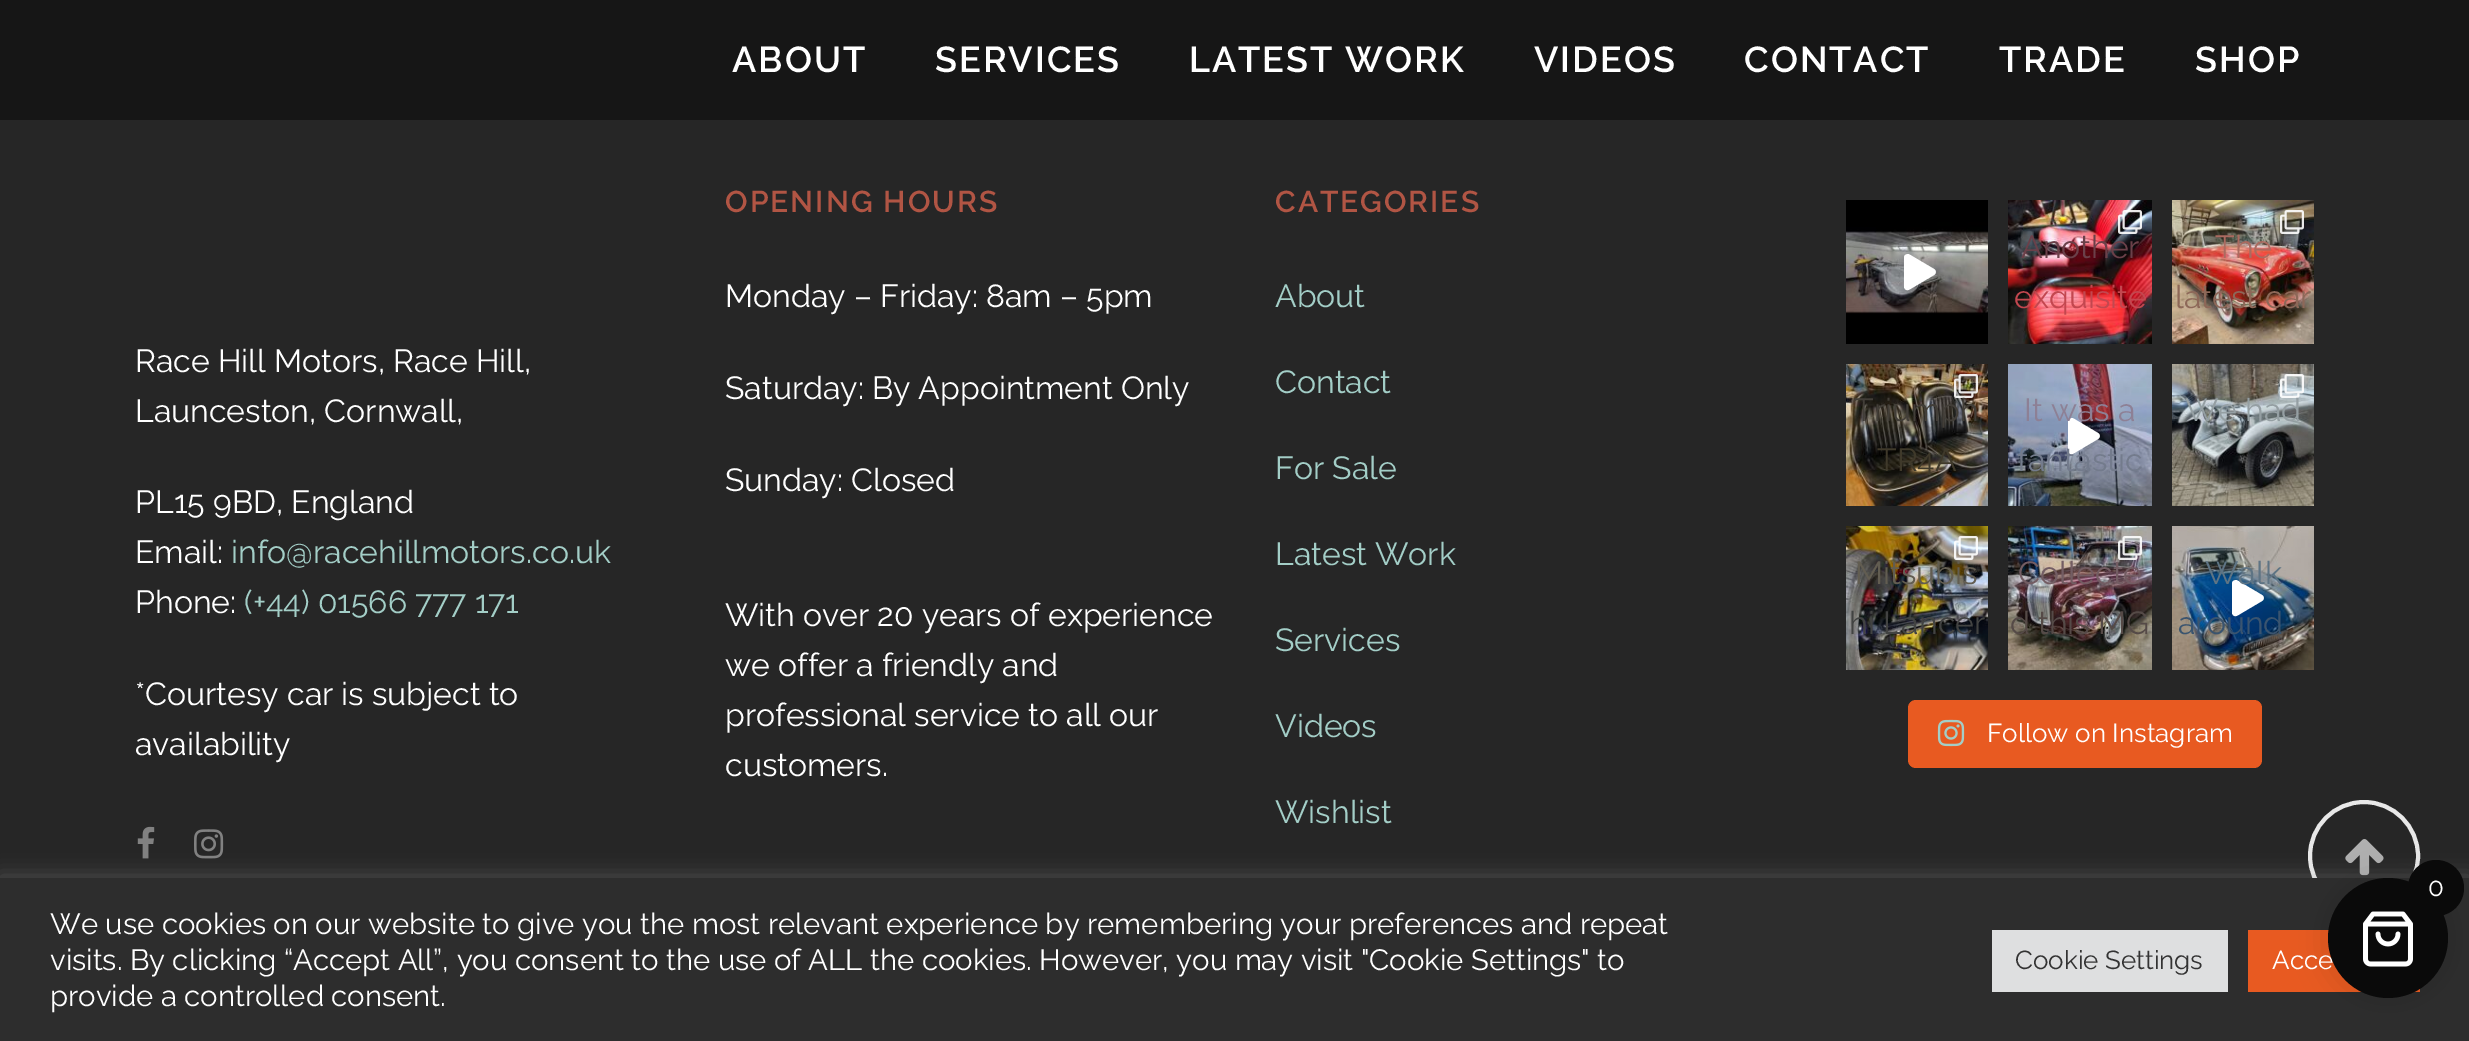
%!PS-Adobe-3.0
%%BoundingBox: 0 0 2469 1041
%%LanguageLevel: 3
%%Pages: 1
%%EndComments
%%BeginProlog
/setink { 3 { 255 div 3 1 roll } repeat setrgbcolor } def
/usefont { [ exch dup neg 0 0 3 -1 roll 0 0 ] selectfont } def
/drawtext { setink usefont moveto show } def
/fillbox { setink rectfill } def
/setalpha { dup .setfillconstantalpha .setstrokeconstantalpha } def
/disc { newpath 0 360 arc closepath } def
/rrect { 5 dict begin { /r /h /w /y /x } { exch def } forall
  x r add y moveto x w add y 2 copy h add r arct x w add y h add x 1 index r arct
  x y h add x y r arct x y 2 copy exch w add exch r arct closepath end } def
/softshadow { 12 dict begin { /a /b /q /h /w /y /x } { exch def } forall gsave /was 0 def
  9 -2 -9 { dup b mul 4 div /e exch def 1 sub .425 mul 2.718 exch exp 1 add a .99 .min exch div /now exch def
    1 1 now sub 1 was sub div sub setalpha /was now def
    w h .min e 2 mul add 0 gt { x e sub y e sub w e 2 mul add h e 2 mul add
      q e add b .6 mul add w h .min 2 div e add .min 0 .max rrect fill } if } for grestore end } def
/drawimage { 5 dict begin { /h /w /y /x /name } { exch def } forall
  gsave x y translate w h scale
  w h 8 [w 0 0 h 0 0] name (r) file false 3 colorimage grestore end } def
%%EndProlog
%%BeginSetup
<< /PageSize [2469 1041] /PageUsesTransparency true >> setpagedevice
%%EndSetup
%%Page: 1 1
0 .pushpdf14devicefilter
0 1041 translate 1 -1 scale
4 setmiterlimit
0 0 2469 1041 38 38 38 fillbox
0 0 2469 120 22 22 22 fillbox
/Raleway-SemiBold 36 usefont
255 255 255 setink
732 72 moveto 2 0 (ABOUT) ashow
935 72 moveto 2 0 (SERVICES) ashow
1189 72 moveto 2 0 (LATEST WORK) ashow
1534 72 moveto 2 0 (VIDEOS) ashow
1744 72 moveto 2 0 (CONTACT) ashow
1999 72 moveto 2 0 (TRADE) ashow
2195 72 moveto 2 0 (SHOP) ashow
(Race Hill Motors, Race Hill,) 135 372 /Raleway-Regular 32 255 255 255 drawtext
(Launceston, Cornwall,) 135 422 /Raleway-Regular 32 255 255 255 drawtext
(PL15 9BD, England) 135 513 /Raleway-Regular 32 255 255 255 drawtext
(Email:) 135 563 /Raleway-Regular 32 255 255 255 drawtext
(info@racehillmotors.co.uk) 231 563 /Raleway-Regular 32 163 206 199 drawtext
(Phone:) 135 613 /Raleway-Regular 32 255 255 255 drawtext
(\(+44\) 01566 777 171) 244 613 /Raleway-Regular 32 163 206 199 drawtext
(*Courtesy car is subject to) 135 705 /Raleway-Regular 32 255 255 255 drawtext
(availability) 135 755 /Raleway-Regular 32 255 255 255 drawtext
(assets/img1.rgb) 137 826 18 33 drawimage
(assets/img2.rgb) 194 829 30 30 drawimage
/Raleway-SemiBold 30 usefont
177 85 68 setink
725 212 moveto 2 0 (OPENING HOURS) ashow
(Monday – Friday: 8am – 5pm) 725 307 /Raleway-Regular 32 255 255 255 drawtext
(Saturday: By Appointment Only) 725 399 /Raleway-Regular 32 255 255 255 drawtext
(Sunday: Closed) 725 491 /Raleway-Regular 32 255 255 255 drawtext
(With over 20 years of experience) 725 626 /Raleway-Regular 32 255 255 255 drawtext
(we offer a friendly and) 725 676 /Raleway-Regular 32 255 255 255 drawtext
(professional service to all our) 725 726 /Raleway-Regular 32 255 255 255 drawtext
(customers.) 725 776 /Raleway-Regular 32 255 255 255 drawtext
/Raleway-SemiBold 30 usefont
177 85 68 setink
1275 212 moveto 2 0 (CATEGORIES) ashow
(About) 1275 307 /Raleway-Regular 32 163 206 199 drawtext
(Contact) 1275 393 /Raleway-Regular 32 163 206 199 drawtext
(For Sale) 1275 479 /Raleway-Regular 32 163 206 199 drawtext
(Latest Work) 1275 565 /Raleway-Regular 32 163 206 199 drawtext
(Services) 1275 651 /Raleway-Regular 32 163 206 199 drawtext
(Videos) 1275 737 /Raleway-Regular 32 163 206 199 drawtext
(Wishlist) 1275 823 /Raleway-Regular 32 163 206 199 drawtext
(assets/img3.rgb) 1846 200 142 144 drawimage
255 255 255 setink
1934 269 moveto 1909.5 254.5 lineto 1907.5 253.5 1904 254.5 1904 257.5 curveto 1904 286.5 lineto 1904 289.5 1907 291 1909.5 289.5 curveto 1934 275 lineto 1936.5 273.5 1936.5 270.5 1934 269 curveto closepath fill
(assets/img4.rgb) 2008 200 144 144 drawimage
(assets/img5.rgb) 2118 210 24 24 drawimage
(Another) 2021 258 /Raleway-Regular 32 107 64 73 drawtext
(exquisite) 2014 308 /Raleway-Regular 32 195 71 79 drawtext
(assets/img6.rgb) 2172 200 142 144 drawimage
(assets/img7.rgb) 2280 210 24 24 drawimage
(The) 2215 258 /Raleway-Regular 32 171 107 96 drawtext
(latest car) 2175 308 /Raleway-Regular 32 141 104 88 drawtext
(assets/img8.rgb) 1846 364 142 142 drawimage
(assets/img9.rgb) 1954 374 24 24 drawimage
(Triumph) 1854 421 /Raleway-Regular 32 66 62 56 drawtext
(TR4A) 1877 471 /Raleway-Regular 32 63 57 42 drawtext
(assets/img10.rgb) 2008 364 144 142 drawimage
255 255 255 setink
2098 433 moveto 2073.5 418.5 lineto 2071.5 417.5 2068 418.5 2068 421.5 curveto 2068 450.5 lineto 2068 453.5 2071 455 2073.5 453.5 curveto 2098 439 lineto 2100.5 437.5 2100.5 434.5 2098 433 curveto closepath fill
(It was a) 2024 421 /Raleway-Regular 32 141 128 149 drawtext
(fantastic) 2017 471 /Raleway-Regular 32 115 123 140 drawtext
(assets/img11.rgb) 2172 364 142 142 drawimage
(assets/img12.rgb) 2280 374 24 24 drawimage
(We had) 2185 421 /Raleway-Regular 32 149 159 163 drawtext
(assets/img13.rgb) 1846 526 142 144 drawimage
(assets/img14.rgb) 1954 536 24 24 drawimage
(Mitsubis) 1855 584 /Raleway-Regular 32 98 93 81 drawtext
(hi Lancer) 1849 634 /Raleway-Regular 32 66 67 66 drawtext
(assets/img15.rgb) 2008 526 144 144 drawimage
(assets/img16.rgb) 2118 536 24 24 drawimage
(Collecte) 2018 584 /Raleway-Regular 32 115 93 99 drawtext
(d this MG) 2010 634 /Raleway-Regular 32 85 74 71 drawtext
(assets/img17.rgb) 2172 526 142 144 drawimage
255 255 255 setink
2262 595 moveto 2237.5 580.5 lineto 2235.5 579.5 2232 580.5 2232 583.5 curveto 2232 612.5 lineto 2232 615.5 2235 617 2237.5 615.5 curveto 2262 601 lineto 2264.5 599.5 2264.5 596.5 2262 595 curveto closepath fill
(Walk) 2205 584 /Raleway-Regular 32 94 116 132 drawtext
(around) 2178 634 /Raleway-Regular 32 58 84 111 drawtext
232 90 33 setink
1908 700 354 68 8 rrect fill
(assets/img18.rgb) 1937 719 28 28 drawimage
(Follow on Instagram) 1987 742 /Raleway-Regular 26 255 255 255 drawtext
232 232 232 setink
4 setlinewidth
2364 856 54 disc stroke
(assets/img19.rgb) 2345 839 39 37 drawimage
172 171 171 setink
0 876 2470 164 0 10 0.3 softshadow
0 878 2469 163 45 45 45 fillbox
2248 930 172 62 232 90 33 fillbox
0 0 0 setink
2324 874 128 128 64 15 0.1 softshadow
(Acce) 2272 969 /Raleway-Regular 26 255 255 255 drawtext
10 10 10 setink
2388 938 60 disc fill
(assets/img20.rgb) 2363 911 50 56 drawimage
2436 888 28 disc fill
(0) 2428 896 /Raleway-Regular 26 255 255 255 drawtext
(We use cookies on our website to give you the most relevant experience by remembering your preferences and repeat) 50 934 /Raleway-Regular 29.33 255 255 255 drawtext
(visits. By clicking “Accept All”, you consent to the use of ALL the cookies. However, you may visit "Cookie Settings" to) 50 970 /Raleway-Regular 29.33 255 255 255 drawtext
(provide a controlled consent.) 50 1006 /Raleway-Regular 29.33 255 255 255 drawtext
1992 930 236 62 222 223 224 fillbox
(Cookie Settings) 2015 969 /Raleway-Regular 26 51 51 51 drawtext
.poppdf14devicefilter showpage
%%EOF
